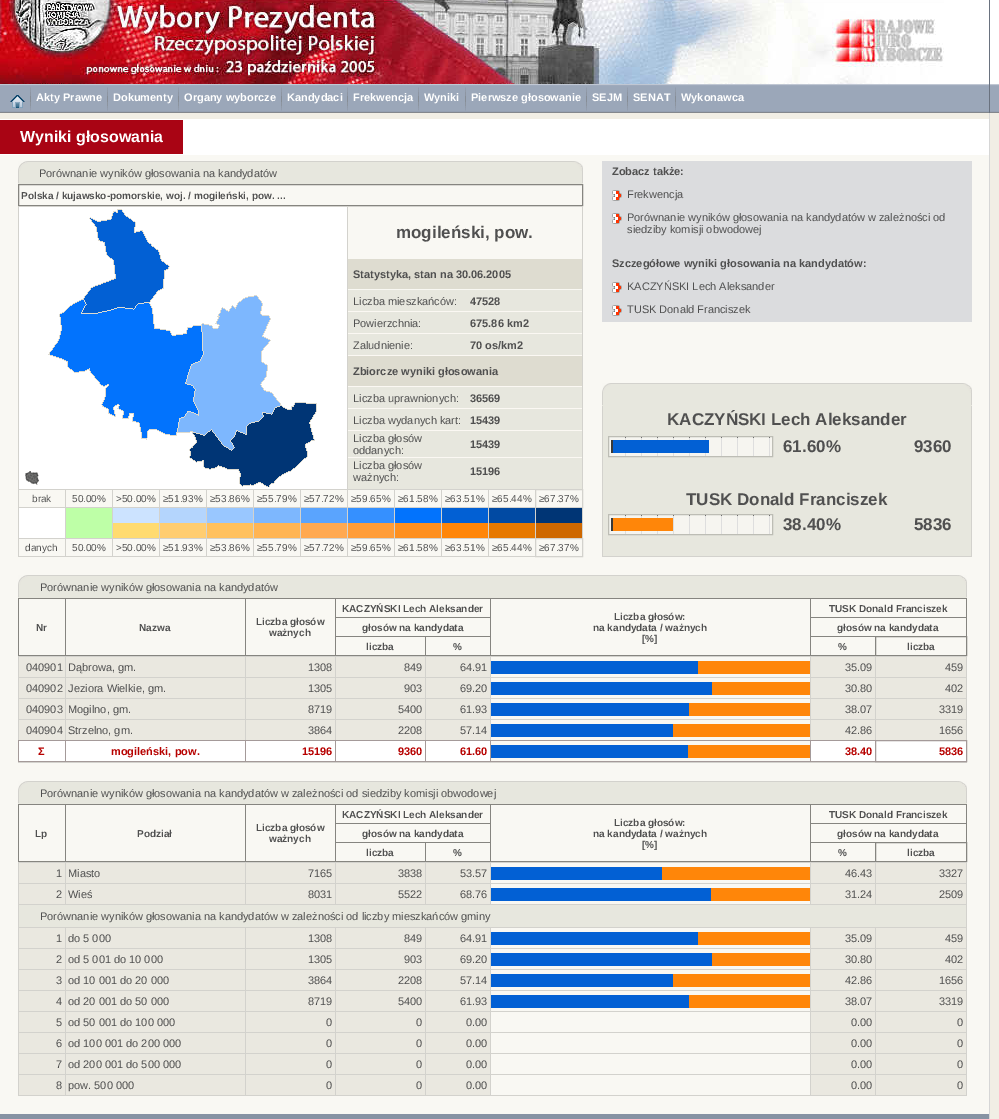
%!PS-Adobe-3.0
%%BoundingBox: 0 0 999 1119
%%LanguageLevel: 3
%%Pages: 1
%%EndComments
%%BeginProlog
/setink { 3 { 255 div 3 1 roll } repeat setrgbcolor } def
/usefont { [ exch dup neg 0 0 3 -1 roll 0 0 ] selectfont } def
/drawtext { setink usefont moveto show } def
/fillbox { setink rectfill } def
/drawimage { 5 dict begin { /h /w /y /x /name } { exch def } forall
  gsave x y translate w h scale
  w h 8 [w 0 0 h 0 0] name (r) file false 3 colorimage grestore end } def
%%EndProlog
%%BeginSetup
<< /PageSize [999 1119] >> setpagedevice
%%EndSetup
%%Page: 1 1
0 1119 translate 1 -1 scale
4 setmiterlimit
0 0 999 1119 241 238 229 fillbox
944 0 45 84 255 255 255 fillbox
(assets/img1.rgb) 0 0 944 84 drawimage
990 0 9 84 255 255 255 fillbox
106 114 127 setink
989 84 moveto 989 -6 lineto 990 -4 lineto 990 84 lineto closepath fill
(assets/img2.rgb) 0 84 989 29 drawimage
(assets/img3.rgb) 10 94 15 14 drawimage
(assets/img4.rgb) 30 87 1 24 drawimage
(Akty Prawne) 36 101 /LiberationSans-Bold 11 255 255 255 drawtext
(assets/img4.rgb) 107 87 1 24 drawimage
(Dokumenty) 113 101 /LiberationSans-Bold 11 255 255 255 drawtext
(assets/img4.rgb) 178 87 1 24 drawimage
(Organy wyborcze) 184 101 /LiberationSans-Bold 11 255 255 255 drawtext
(assets/img4.rgb) 281 87 1 24 drawimage
(Kandydaci) 287 101 /LiberationSans-Bold 11 255 255 255 drawtext
(assets/img4.rgb) 347 87 1 24 drawimage
(Frekwencja) 353 101 /LiberationSans-Bold 11 255 255 255 drawtext
(assets/img4.rgb) 418 87 1 24 drawimage
(Wyniki) 424 101 /LiberationSans-Bold 11 255 255 255 drawtext
(assets/img4.rgb) 465 87 1 24 drawimage
(Pierwsze głosowanie) 471 101 /LiberationSans-Bold 11 255 255 255 drawtext
(assets/img4.rgb) 586 87 1 24 drawimage
(SEJM) 592 101 /LiberationSans-Bold 11 255 255 255 drawtext
(assets/img4.rgb) 627 87 1 24 drawimage
(SENAT) 633 101 /LiberationSans-Bold 11 255 255 255 drawtext
(assets/img4.rgb) 675 87 1 24 drawimage
(Wykonawca) 681 101 /LiberationSans-Bold 11 255 255 255 drawtext
(assets/img5.rgb) 990 84 9 29 drawimage
989 84 1 29 106 114 127 fillbox
0 119 989 36 255 255 255 fillbox
0 120 183 34 169 4 20 fillbox
(Wyniki głosowania) 20 142 /LiberationSans-Bold 16 255 255 255 drawtext
989 113 1 1006 214 214 214 fillbox
0 155 989 959 249 248 243 fillbox
(assets/img6.rgb) 18 161 10 10 drawimage
28 162 544 21 231 231 222 fillbox
28 161 544 1 211 210 205 fillbox
(assets/img7.rgb) 572 161 11 10 drawimage
(Porównanie wyników głosowania na kandydatów) 39 177 /LiberationSans-Regular 11 80 80 80 drawtext
19 171 9 12 231 231 222 fillbox
18 171 1 12 211 210 205 fillbox
572 171 10 12 231 231 222 fillbox
582 171 1 12 211 210 205 fillbox
18 183 565 1 231 231 222 fillbox
134 133 128 setink
18.5 184.5 564 21 rectstroke
(Polska / kujawsko-pomorskie, woj. / mogileński, pow. ...) 21 199 /LiberationSans-Bold 10 80 80 80 drawtext
19 207 328 282 255 255 255 fillbox
18 206 565 1 211 210 205 fillbox
18 206 1 283 211 210 205 fillbox
(assets/img8.rgb) 25 209 292 278 drawimage
348 290 234 199 231 231 222 fillbox
582 206 1 283 211 210 205 fillbox
347 206 1 283 211 210 205 fillbox
(mogileński, pow.) 396 238 /LiberationSans-Bold 17 80 80 80 drawtext
348 259 234 30 222 220 208 fillbox
(Statystyka, stan na 30.06.2005) 353 278 /LiberationSans-Bold 11 80 80 80 drawtext
(Liczba mieszkańców:) 353 305 /LiberationSans-Regular 11 80 80 80 drawtext
(47528) 470 305 /LiberationSans-Bold 11 80 80 80 drawtext
348 311 234 1 251 248 243 fillbox
(Powierzchnia:) 353 327 /LiberationSans-Regular 11 80 80 80 drawtext
(675.86 km2) 470 327 /LiberationSans-Bold 11 80 80 80 drawtext
348 333 234 1 251 248 243 fillbox
(Zaludnienie:) 353 349 /LiberationSans-Regular 11 80 80 80 drawtext
(70 os/km2) 470 349 /LiberationSans-Bold 11 80 80 80 drawtext
348 356 234 30 222 220 208 fillbox
348 355 234 1 251 248 243 fillbox
(Zbiorcze wyniki głosowania) 353 375 /LiberationSans-Bold 11 80 80 80 drawtext
348 386 234 1 251 248 243 fillbox
(Liczba uprawnionych:) 353 402 /LiberationSans-Regular 11 80 80 80 drawtext
(36569) 470 402 /LiberationSans-Bold 11 80 80 80 drawtext
348 408 234 1 251 248 243 fillbox
(Liczba wydanych kart:) 353 424 /LiberationSans-Regular 11 80 80 80 drawtext
(15439) 470 424 /LiberationSans-Bold 11 80 80 80 drawtext
348 430 234 1 251 248 243 fillbox
(Liczba głosów) 353 442 /LiberationSans-Regular 11 80 80 80 drawtext
(oddanych:) 353 454 /LiberationSans-Regular 11 80 80 80 drawtext
(15439) 470 448 /LiberationSans-Bold 11 80 80 80 drawtext
348 457 234 1 251 248 243 fillbox
(Liczba głosów) 353 469 /LiberationSans-Regular 11 80 80 80 drawtext
(ważnych:) 353 481 /LiberationSans-Regular 11 80 80 80 drawtext
(15196) 470 475 /LiberationSans-Bold 11 80 80 80 drawtext
18 489 517 1 211 210 205 fillbox
18 507 517 1 211 210 205 fillbox
18 489 1 49 211 210 205 fillbox
(brak) 32 502 /LiberationSans-Regular 10 80 80 80 drawtext
65 489 1 49 211 210 205 fillbox
(50.00%) 72 502 /LiberationSans-Regular 10 80 80 80 drawtext
112 489 1 49 211 210 205 fillbox
(>50.00%) 116 502 /LiberationSans-Regular 10 80 80 80 drawtext
159 489 1 49 211 210 205 fillbox
(≥51.93%) 163 502 /LiberationSans-Regular 10 80 80 80 drawtext
206 489 1 49 211 210 205 fillbox
(≥53.86%) 210 502 /LiberationSans-Regular 10 80 80 80 drawtext
253 489 1 49 211 210 205 fillbox
(≥55.79%) 257 502 /LiberationSans-Regular 10 80 80 80 drawtext
300 489 1 49 211 210 205 fillbox
(≥57.72%) 304 502 /LiberationSans-Regular 10 80 80 80 drawtext
347 489 1 49 211 210 205 fillbox
(≥59.65%) 351 502 /LiberationSans-Regular 10 80 80 80 drawtext
394 489 1 49 211 210 205 fillbox
(≥61.58%) 398 502 /LiberationSans-Regular 10 80 80 80 drawtext
441 489 1 49 211 210 205 fillbox
(≥63.51%) 445 502 /LiberationSans-Regular 10 80 80 80 drawtext
488 489 1 49 211 210 205 fillbox
(≥65.44%) 492 502 /LiberationSans-Regular 10 80 80 80 drawtext
211 210 205 setink
535.5 489.5 47 18 rectstroke
(≥67.37%) 539 502 /LiberationSans-Regular 10 80 80 80 drawtext
19 508 46 30 255 255 255 fillbox
66 508 46 30 190 255 167 fillbox
113 508 46 15 204 227 255 fillbox
160 508 46 15 180 213 253 fillbox
207 508 46 15 153 199 255 fillbox
254 508 46 15 125 183 254 fillbox
301 508 46 15 90 164 254 fillbox
348 508 46 15 53 144 255 fillbox
395 508 46 15 2 115 253 fillbox
442 508 46 15 2 96 212 fillbox
489 508 46 15 1 74 163 fillbox
536 508 46 15 0 53 117 fillbox
582 508 1 30 211 210 205 fillbox
535 508 1 30 211 210 205 fillbox
113 523 46 15 255 219 112 fillbox
160 523 46 15 255 205 112 fillbox
207 523 46 15 255 193 94 fillbox
254 523 46 15 255 181 84 fillbox
301 523 46 15 255 169 81 fillbox
348 523 46 15 255 157 57 fillbox
395 523 46 15 254 144 32 fillbox
442 523 46 15 255 134 9 fillbox
489 523 46 15 231 121 0 fillbox
536 523 46 15 206 104 0 fillbox
18 538 517 1 211 210 205 fillbox
18 556 517 1 211 210 205 fillbox
18 538 1 19 211 210 205 fillbox
(danych) 25 551 /LiberationSans-Regular 10 80 80 80 drawtext
65 538 1 19 211 210 205 fillbox
(50.00%) 72 551 /LiberationSans-Regular 10 80 80 80 drawtext
112 538 1 19 211 210 205 fillbox
(>50.00%) 116 551 /LiberationSans-Regular 10 80 80 80 drawtext
159 538 1 19 211 210 205 fillbox
(≥51.93%) 163 551 /LiberationSans-Regular 10 80 80 80 drawtext
206 538 1 19 211 210 205 fillbox
(≥53.86%) 210 551 /LiberationSans-Regular 10 80 80 80 drawtext
253 538 1 19 211 210 205 fillbox
(≥55.79%) 257 551 /LiberationSans-Regular 10 80 80 80 drawtext
300 538 1 19 211 210 205 fillbox
(≥57.72%) 304 551 /LiberationSans-Regular 10 80 80 80 drawtext
347 538 1 19 211 210 205 fillbox
(≥59.65%) 351 551 /LiberationSans-Regular 10 80 80 80 drawtext
394 538 1 19 211 210 205 fillbox
(≥61.58%) 398 551 /LiberationSans-Regular 10 80 80 80 drawtext
441 538 1 19 211 210 205 fillbox
(≥63.51%) 445 551 /LiberationSans-Regular 10 80 80 80 drawtext
488 538 1 19 211 210 205 fillbox
(≥65.44%) 492 551 /LiberationSans-Regular 10 80 80 80 drawtext
211 210 205 setink
535.5 538.5 47 18 rectstroke
(≥67.37%) 539 551 /LiberationSans-Regular 10 80 80 80 drawtext
602 161 370 161 219 220 222 fillbox
(Zobacz także:) 612 175 /LiberationSans-Bold 11 80 80 80 drawtext
(assets/img9.rgb) 612 190 10 11 drawimage
(Frekwencja) 627 198 /LiberationSans-Regular 11 80 80 80 drawtext
(assets/img9.rgb) 612 213 10 11 drawimage
(Porównanie wyników głosowania na kandydatów w zależności od) 627 221 /LiberationSans-Regular 11 80 80 80 drawtext
(siedziby komisji obwodowej) 627 233 /LiberationSans-Regular 11 80 80 80 drawtext
(Szczegółowe wyniki głosowania na kandydatów:) 612 267 /LiberationSans-Bold 11 80 80 80 drawtext
(assets/img9.rgb) 612 282 10 11 drawimage
(KACZYŃSKI Lech Aleksander) 627 290 /LiberationSans-Regular 11 80 80 80 drawtext
(assets/img9.rgb) 612 305 10 11 drawimage
(TUSK Donald Franciszek) 627 313 /LiberationSans-Regular 11 80 80 80 drawtext
602 556 370 1 211 210 205 fillbox
(assets/img10.rgb) 602 383 9 10 drawimage
611 384 352 21 231 231 222 fillbox
611 383 352 1 211 210 205 fillbox
(assets/img11.rgb) 963 383 9 10 drawimage
603 393 8 12 231 231 222 fillbox
602 393 1 12 211 210 205 fillbox
963 393 8 12 231 231 222 fillbox
971 393 1 12 211 210 205 fillbox
602 405 370 1 231 231 222 fillbox
603 406 368 27 231 231 222 fillbox
971 406 1 150 211 210 205 fillbox
602 406 1 150 211 210 205 fillbox
(KACZYŃSKI Lech Aleksander) 667 425 /LiberationSans-Bold 17 80 80 80 drawtext
603 433 368 78 231 231 222 fillbox
(assets/img12.rgb) 609 437 163 19 drawimage
189 189 181 setink
608.5 436.5 164 20 rectstroke
613 440 96 13 2 96 212 fillbox
(61.60%) 783 452 /LiberationSans-Bold 17 80 80 80 drawtext
(9360) 914 452 /LiberationSans-Bold 17 80 80 80 drawtext
(TUSK Donald Franciszek) 686 505 /LiberationSans-Bold 17 80 80 80 drawtext
603 511 368 45 231 231 222 fillbox
(assets/img12.rgb) 609 515 163 19 drawimage
189 189 181 setink
608.5 514.5 164 20 rectstroke
613 518 60 13 255 134 9 fillbox
(38.40%) 783 530 /LiberationSans-Bold 17 80 80 80 drawtext
(5836) 914 530 /LiberationSans-Bold 17 80 80 80 drawtext
18 762 949 1 211 210 205 fillbox
(assets/img6.rgb) 18 575 10 10 drawimage
28 576 929 21 231 231 222 fillbox
28 575 929 1 211 210 205 fillbox
(assets/img13.rgb) 957 575 10 10 drawimage
(Porównanie wyników głosowania na kandydatów) 40 591 /LiberationSans-Regular 11 80 80 80 drawtext
19 585 9 12 231 231 222 fillbox
18 585 1 12 211 210 205 fillbox
957 585 9 12 231 231 222 fillbox
966 585 1 12 211 210 205 fillbox
18 597 949 1 231 231 222 fillbox
18 598 949 1 134 133 128 fillbox
335 598 1 19 134 133 128 fillbox
(KACZYŃSKI Lech Aleksander) 342 612 /LiberationSans-Bold 10 80 80 80 drawtext
966 598 1 19 134 133 128 fillbox
810 598 1 19 134 133 128 fillbox
(TUSK Donald Franciszek) 829 612 /LiberationSans-Bold 10 80 80 80 drawtext
18 655 407 1 134 133 128 fillbox
18 598 1 58 134 133 128 fillbox
(Nr) 36 631 /LiberationSans-Bold 10 80 80 80 drawtext
65 598 1 58 134 133 128 fillbox
(Nazwa) 139 631 /LiberationSans-Bold 10 80 80 80 drawtext
245 598 1 58 134 133 128 fillbox
(Liczba głosów) 256 625 /LiberationSans-Bold 10 80 80 80 drawtext
(ważnych) 269 636 /LiberationSans-Bold 10 80 80 80 drawtext
425 655 450 1 134 133 128 fillbox
490 598 1 58 134 133 128 fillbox
(Liczba głosów:) 614 620 /LiberationSans-Bold 10 80 80 80 drawtext
(na kandydata / ważnych) 593 631 /LiberationSans-Bold 10 80 80 80 drawtext
([%]) 642 642 /LiberationSans-Bold 10 80 80 80 drawtext
335 617 155 1 134 133 128 fillbox
335 617 1 19 134 133 128 fillbox
(głosów na kandydata) 362 631 /LiberationSans-Bold 10 80 80 80 drawtext
810 617 157 1 134 133 128 fillbox
966 617 1 19 134 133 128 fillbox
810 617 1 19 134 133 128 fillbox
(głosów na kandydata) 837 631 /LiberationSans-Bold 10 80 80 80 drawtext
335 636 155 1 134 133 128 fillbox
335 636 1 20 134 133 128 fillbox
(liczba) 366 650 /LiberationSans-Bold 10 80 80 80 drawtext
425 636 1 20 134 133 128 fillbox
(%) 453 650 /LiberationSans-Bold 10 80 80 80 drawtext
810 636 65 1 134 133 128 fillbox
810 636 1 20 134 133 128 fillbox
(%) 838 650 /LiberationSans-Bold 10 80 80 80 drawtext
134 133 128 setink
875.5 636.5 91 19 rectstroke
(liczba) 907 650 /LiberationSans-Bold 10 80 80 80 drawtext
19 657 46 20 234 232 224 fillbox
18 656 949 1 211 210 205 fillbox
18 656 1 21 211 210 205 fillbox
(040901) 26 671 /LiberationSans-Regular 11 80 80 80 drawtext
66 657 179 20 234 232 224 fillbox
65 656 1 21 211 210 205 fillbox
(Dąbrowa, gm.) 68 671 /LiberationSans-Regular 11 80 80 80 drawtext
246 657 89 20 234 232 224 fillbox
245 656 1 21 211 210 205 fillbox
(1308) 308 671 /LiberationSans-Regular 11 80 80 80 drawtext
336 657 89 20 234 232 224 fillbox
335 656 1 21 211 210 205 fillbox
(849) 404 671 /LiberationSans-Regular 11 80 80 80 drawtext
426 657 64 20 234 232 224 fillbox
425 656 1 21 211 210 205 fillbox
(64.91) 460 671 /LiberationSans-Regular 11 80 80 80 drawtext
490 656 1 21 211 210 205 fillbox
491 661 207 13 2 96 212 fillbox
698 661 112 13 255 134 9 fillbox
811 657 64 20 234 232 224 fillbox
810 656 1 21 211 210 205 fillbox
(35.09) 845 671 /LiberationSans-Regular 11 80 80 80 drawtext
876 657 90 20 234 232 224 fillbox
966 656 1 21 211 210 205 fillbox
875 656 1 21 211 210 205 fillbox
(459) 945 671 /LiberationSans-Regular 11 80 80 80 drawtext
19 678 46 20 234 232 224 fillbox
18 677 949 1 211 210 205 fillbox
18 677 1 21 211 210 205 fillbox
(040902) 26 692 /LiberationSans-Regular 11 80 80 80 drawtext
66 678 179 20 234 232 224 fillbox
65 677 1 21 211 210 205 fillbox
(Jeziora Wielkie, gm.) 68 692 /LiberationSans-Regular 11 80 80 80 drawtext
246 678 89 20 234 232 224 fillbox
245 677 1 21 211 210 205 fillbox
(1305) 308 692 /LiberationSans-Regular 11 80 80 80 drawtext
336 678 89 20 234 232 224 fillbox
335 677 1 21 211 210 205 fillbox
(903) 404 692 /LiberationSans-Regular 11 80 80 80 drawtext
426 678 64 20 234 232 224 fillbox
425 677 1 21 211 210 205 fillbox
(69.20) 460 692 /LiberationSans-Regular 11 80 80 80 drawtext
490 677 1 21 211 210 205 fillbox
491 682 221 13 2 96 212 fillbox
712 682 98 13 255 134 9 fillbox
811 678 64 20 234 232 224 fillbox
810 677 1 21 211 210 205 fillbox
(30.80) 845 692 /LiberationSans-Regular 11 80 80 80 drawtext
876 678 90 20 234 232 224 fillbox
966 677 1 21 211 210 205 fillbox
875 677 1 21 211 210 205 fillbox
(402) 945 692 /LiberationSans-Regular 11 80 80 80 drawtext
19 699 46 20 234 232 224 fillbox
18 698 949 1 211 210 205 fillbox
18 698 1 21 211 210 205 fillbox
(040903) 26 713 /LiberationSans-Regular 11 80 80 80 drawtext
66 699 179 20 234 232 224 fillbox
65 698 1 21 211 210 205 fillbox
(Mogilno, gm.) 68 713 /LiberationSans-Regular 11 80 80 80 drawtext
246 699 89 20 234 232 224 fillbox
245 698 1 21 211 210 205 fillbox
(8719) 308 713 /LiberationSans-Regular 11 80 80 80 drawtext
336 699 89 20 234 232 224 fillbox
335 698 1 21 211 210 205 fillbox
(5400) 398 713 /LiberationSans-Regular 11 80 80 80 drawtext
426 699 64 20 234 232 224 fillbox
425 698 1 21 211 210 205 fillbox
(61.93) 460 713 /LiberationSans-Regular 11 80 80 80 drawtext
490 698 1 21 211 210 205 fillbox
491 703 198 13 2 96 212 fillbox
689 703 121 13 255 134 9 fillbox
811 699 64 20 234 232 224 fillbox
810 698 1 21 211 210 205 fillbox
(38.07) 845 713 /LiberationSans-Regular 11 80 80 80 drawtext
876 699 90 20 234 232 224 fillbox
966 698 1 21 211 210 205 fillbox
875 698 1 21 211 210 205 fillbox
(3319) 939 713 /LiberationSans-Regular 11 80 80 80 drawtext
19 720 46 20 234 232 224 fillbox
18 719 949 1 211 210 205 fillbox
18 719 1 21 211 210 205 fillbox
(040904) 26 734 /LiberationSans-Regular 11 80 80 80 drawtext
66 720 179 20 234 232 224 fillbox
65 719 1 21 211 210 205 fillbox
(Strzelno, gm.) 68 734 /LiberationSans-Regular 11 80 80 80 drawtext
246 720 89 20 234 232 224 fillbox
245 719 1 21 211 210 205 fillbox
(3864) 308 734 /LiberationSans-Regular 11 80 80 80 drawtext
336 720 89 20 234 232 224 fillbox
335 719 1 21 211 210 205 fillbox
(2208) 398 734 /LiberationSans-Regular 11 80 80 80 drawtext
426 720 64 20 234 232 224 fillbox
425 719 1 21 211 210 205 fillbox
(57.14) 460 734 /LiberationSans-Regular 11 80 80 80 drawtext
490 719 1 21 211 210 205 fillbox
491 724 182 13 2 96 212 fillbox
673 724 137 13 255 134 9 fillbox
811 720 64 20 234 232 224 fillbox
810 719 1 21 211 210 205 fillbox
(42.86) 845 734 /LiberationSans-Regular 11 80 80 80 drawtext
876 720 90 20 234 232 224 fillbox
966 719 1 21 211 210 205 fillbox
875 719 1 21 211 210 205 fillbox
(1656) 939 734 /LiberationSans-Regular 11 80 80 80 drawtext
19 741 46 20 255 255 255 fillbox
18 740 857 1 164 154 153 fillbox
18 761 857 1 164 154 153 fillbox
18 740 1 22 164 154 153 fillbox
(Σ) 38 755 /LiberationSans-Bold 11 183 1 0 drawtext
66 741 179 20 255 255 255 fillbox
65 740 1 22 164 154 153 fillbox
(mogileński, pow.) 111 755 /LiberationSans-Bold 11 183 1 0 drawtext
246 741 89 20 255 255 255 fillbox
245 740 1 22 164 154 153 fillbox
(15196) 302 755 /LiberationSans-Bold 11 183 1 0 drawtext
336 741 89 20 255 255 255 fillbox
335 740 1 22 164 154 153 fillbox
(9360) 398 755 /LiberationSans-Bold 11 183 1 0 drawtext
426 741 64 20 255 255 255 fillbox
425 740 1 22 164 154 153 fillbox
(61.60) 460 755 /LiberationSans-Bold 11 183 1 0 drawtext
490 740 1 22 164 154 153 fillbox
491 745 197 13 2 96 212 fillbox
688 745 122 13 255 134 9 fillbox
811 741 64 20 255 255 255 fillbox
810 740 1 22 164 154 153 fillbox
(38.40) 845 755 /LiberationSans-Bold 11 183 1 0 drawtext
255 255 255 setink
875.5 740.5 moveto 966.5 740.5 lineto 966.5 761.5 lineto 875.5 761.5 lineto closepath gsave fill grestore
164 154 153 setink
stroke
(5836) 939 755 /LiberationSans-Bold 11 183 1 0 drawtext
18 1095 949 1 211 210 205 fillbox
(assets/img6.rgb) 18 781 10 10 drawimage
28 782 929 21 231 231 222 fillbox
28 781 929 1 211 210 205 fillbox
(assets/img13.rgb) 957 781 10 10 drawimage
(Porównanie wyników głosowania na kandydatów w zależności od siedziby komisji obwodowej) 40 797 /LiberationSans-Regular 11 80 80 80 drawtext
19 791 9 12 231 231 222 fillbox
18 791 1 12 211 210 205 fillbox
957 791 9 12 231 231 222 fillbox
966 791 1 12 211 210 205 fillbox
18 803 949 1 231 231 222 fillbox
18 804 949 1 134 133 128 fillbox
335 804 1 19 134 133 128 fillbox
(KACZYŃSKI Lech Aleksander) 342 818 /LiberationSans-Bold 10 80 80 80 drawtext
966 804 1 19 134 133 128 fillbox
810 804 1 19 134 133 128 fillbox
(TUSK Donald Franciszek) 829 818 /LiberationSans-Bold 10 80 80 80 drawtext
18 861 407 1 134 133 128 fillbox
18 804 1 58 134 133 128 fillbox
(Lp) 35 837 /LiberationSans-Bold 10 80 80 80 drawtext
65 804 1 58 134 133 128 fillbox
(Podział) 137 837 /LiberationSans-Bold 10 80 80 80 drawtext
245 804 1 58 134 133 128 fillbox
(Liczba głosów) 256 831 /LiberationSans-Bold 10 80 80 80 drawtext
(ważnych) 269 842 /LiberationSans-Bold 10 80 80 80 drawtext
425 861 450 1 134 133 128 fillbox
490 804 1 58 134 133 128 fillbox
(Liczba głosów:) 614 826 /LiberationSans-Bold 10 80 80 80 drawtext
(na kandydata / ważnych) 593 837 /LiberationSans-Bold 10 80 80 80 drawtext
([%]) 642 848 /LiberationSans-Bold 10 80 80 80 drawtext
335 823 155 1 134 133 128 fillbox
335 823 1 19 134 133 128 fillbox
(głosów na kandydata) 362 837 /LiberationSans-Bold 10 80 80 80 drawtext
810 823 157 1 134 133 128 fillbox
966 823 1 19 134 133 128 fillbox
810 823 1 19 134 133 128 fillbox
(głosów na kandydata) 837 837 /LiberationSans-Bold 10 80 80 80 drawtext
335 842 155 1 134 133 128 fillbox
335 842 1 20 134 133 128 fillbox
(liczba) 366 856 /LiberationSans-Bold 10 80 80 80 drawtext
425 842 1 20 134 133 128 fillbox
(%) 453 856 /LiberationSans-Bold 10 80 80 80 drawtext
810 842 65 1 134 133 128 fillbox
810 842 1 20 134 133 128 fillbox
(%) 838 856 /LiberationSans-Bold 10 80 80 80 drawtext
134 133 128 setink
875.5 842.5 91 19 rectstroke
(liczba) 907 856 /LiberationSans-Bold 10 80 80 80 drawtext
19 863 46 20 234 232 224 fillbox
18 862 949 1 211 210 205 fillbox
18 862 1 21 211 210 205 fillbox
(1) 56 877 /LiberationSans-Regular 11 80 80 80 drawtext
66 863 179 20 234 232 224 fillbox
65 862 1 21 211 210 205 fillbox
(Miasto) 68 877 /LiberationSans-Regular 11 80 80 80 drawtext
246 863 89 20 234 232 224 fillbox
245 862 1 21 211 210 205 fillbox
(7165) 308 877 /LiberationSans-Regular 11 80 80 80 drawtext
336 863 89 20 234 232 224 fillbox
335 862 1 21 211 210 205 fillbox
(3838) 398 877 /LiberationSans-Regular 11 80 80 80 drawtext
426 863 64 20 234 232 224 fillbox
425 862 1 21 211 210 205 fillbox
(53.57) 460 877 /LiberationSans-Regular 11 80 80 80 drawtext
490 862 1 21 211 210 205 fillbox
491 867 171 13 2 96 212 fillbox
662 867 148 13 255 134 9 fillbox
811 863 64 20 234 232 224 fillbox
810 862 1 21 211 210 205 fillbox
(46.43) 845 877 /LiberationSans-Regular 11 80 80 80 drawtext
876 863 90 20 234 232 224 fillbox
966 862 1 21 211 210 205 fillbox
875 862 1 21 211 210 205 fillbox
(3327) 939 877 /LiberationSans-Regular 11 80 80 80 drawtext
19 884 46 20 234 232 224 fillbox
18 883 949 1 211 210 205 fillbox
18 883 1 21 211 210 205 fillbox
(2) 56 898 /LiberationSans-Regular 11 80 80 80 drawtext
66 884 179 20 234 232 224 fillbox
65 883 1 21 211 210 205 fillbox
(Wieś) 68 898 /LiberationSans-Regular 11 80 80 80 drawtext
246 884 89 20 234 232 224 fillbox
245 883 1 21 211 210 205 fillbox
(8031) 308 898 /LiberationSans-Regular 11 80 80 80 drawtext
336 884 89 20 234 232 224 fillbox
335 883 1 21 211 210 205 fillbox
(5522) 398 898 /LiberationSans-Regular 11 80 80 80 drawtext
426 884 64 20 234 232 224 fillbox
425 883 1 21 211 210 205 fillbox
(68.76) 460 898 /LiberationSans-Regular 11 80 80 80 drawtext
490 883 1 21 211 210 205 fillbox
491 888 220 13 2 96 212 fillbox
711 888 99 13 255 134 9 fillbox
811 884 64 20 234 232 224 fillbox
810 883 1 21 211 210 205 fillbox
(31.24) 845 898 /LiberationSans-Regular 11 80 80 80 drawtext
876 884 90 20 234 232 224 fillbox
966 883 1 21 211 210 205 fillbox
875 883 1 21 211 210 205 fillbox
(2509) 939 898 /LiberationSans-Regular 11 80 80 80 drawtext
19 905 947 22 231 231 222 fillbox
18 904 949 1 211 210 205 fillbox
18 904 1 23 211 210 205 fillbox
(Porównanie wyników głosowania na kandydatów w zależności od liczby mieszkańców gminy) 40 920 /LiberationSans-Regular 11 80 80 80 drawtext
966 904 1 23 211 210 205 fillbox
19 928 46 20 234 232 224 fillbox
18 927 949 1 211 210 205 fillbox
18 927 1 21 211 210 205 fillbox
(1) 56 942 /LiberationSans-Regular 11 80 80 80 drawtext
66 928 179 20 234 232 224 fillbox
65 927 1 21 211 210 205 fillbox
(do 5 000) 68 942 /LiberationSans-Regular 11 80 80 80 drawtext
246 928 89 20 234 232 224 fillbox
245 927 1 21 211 210 205 fillbox
(1308) 308 942 /LiberationSans-Regular 11 80 80 80 drawtext
336 928 89 20 234 232 224 fillbox
335 927 1 21 211 210 205 fillbox
(849) 404 942 /LiberationSans-Regular 11 80 80 80 drawtext
426 928 64 20 234 232 224 fillbox
425 927 1 21 211 210 205 fillbox
(64.91) 460 942 /LiberationSans-Regular 11 80 80 80 drawtext
490 927 1 21 211 210 205 fillbox
491 932 207 13 2 96 212 fillbox
698 932 112 13 255 134 9 fillbox
811 928 64 20 234 232 224 fillbox
810 927 1 21 211 210 205 fillbox
(35.09) 845 942 /LiberationSans-Regular 11 80 80 80 drawtext
876 928 90 20 234 232 224 fillbox
966 927 1 21 211 210 205 fillbox
875 927 1 21 211 210 205 fillbox
(459) 945 942 /LiberationSans-Regular 11 80 80 80 drawtext
19 949 46 20 234 232 224 fillbox
18 948 949 1 211 210 205 fillbox
18 948 1 21 211 210 205 fillbox
(2) 56 963 /LiberationSans-Regular 11 80 80 80 drawtext
66 949 179 20 234 232 224 fillbox
65 948 1 21 211 210 205 fillbox
(od 5 001 do 10 000) 68 963 /LiberationSans-Regular 11 80 80 80 drawtext
246 949 89 20 234 232 224 fillbox
245 948 1 21 211 210 205 fillbox
(1305) 308 963 /LiberationSans-Regular 11 80 80 80 drawtext
336 949 89 20 234 232 224 fillbox
335 948 1 21 211 210 205 fillbox
(903) 404 963 /LiberationSans-Regular 11 80 80 80 drawtext
426 949 64 20 234 232 224 fillbox
425 948 1 21 211 210 205 fillbox
(69.20) 460 963 /LiberationSans-Regular 11 80 80 80 drawtext
490 948 1 21 211 210 205 fillbox
491 953 221 13 2 96 212 fillbox
712 953 98 13 255 134 9 fillbox
811 949 64 20 234 232 224 fillbox
810 948 1 21 211 210 205 fillbox
(30.80) 845 963 /LiberationSans-Regular 11 80 80 80 drawtext
876 949 90 20 234 232 224 fillbox
966 948 1 21 211 210 205 fillbox
875 948 1 21 211 210 205 fillbox
(402) 945 963 /LiberationSans-Regular 11 80 80 80 drawtext
19 970 46 20 234 232 224 fillbox
18 969 949 1 211 210 205 fillbox
18 969 1 21 211 210 205 fillbox
(3) 56 984 /LiberationSans-Regular 11 80 80 80 drawtext
66 970 179 20 234 232 224 fillbox
65 969 1 21 211 210 205 fillbox
(od 10 001 do 20 000) 68 984 /LiberationSans-Regular 11 80 80 80 drawtext
246 970 89 20 234 232 224 fillbox
245 969 1 21 211 210 205 fillbox
(3864) 308 984 /LiberationSans-Regular 11 80 80 80 drawtext
336 970 89 20 234 232 224 fillbox
335 969 1 21 211 210 205 fillbox
(2208) 398 984 /LiberationSans-Regular 11 80 80 80 drawtext
426 970 64 20 234 232 224 fillbox
425 969 1 21 211 210 205 fillbox
(57.14) 460 984 /LiberationSans-Regular 11 80 80 80 drawtext
490 969 1 21 211 210 205 fillbox
491 974 182 13 2 96 212 fillbox
673 974 137 13 255 134 9 fillbox
811 970 64 20 234 232 224 fillbox
810 969 1 21 211 210 205 fillbox
(42.86) 845 984 /LiberationSans-Regular 11 80 80 80 drawtext
876 970 90 20 234 232 224 fillbox
966 969 1 21 211 210 205 fillbox
875 969 1 21 211 210 205 fillbox
(1656) 939 984 /LiberationSans-Regular 11 80 80 80 drawtext
19 991 46 20 234 232 224 fillbox
18 990 949 1 211 210 205 fillbox
18 990 1 21 211 210 205 fillbox
(4) 56 1005 /LiberationSans-Regular 11 80 80 80 drawtext
66 991 179 20 234 232 224 fillbox
65 990 1 21 211 210 205 fillbox
(od 20 001 do 50 000) 68 1005 /LiberationSans-Regular 11 80 80 80 drawtext
246 991 89 20 234 232 224 fillbox
245 990 1 21 211 210 205 fillbox
(8719) 308 1005 /LiberationSans-Regular 11 80 80 80 drawtext
336 991 89 20 234 232 224 fillbox
335 990 1 21 211 210 205 fillbox
(5400) 398 1005 /LiberationSans-Regular 11 80 80 80 drawtext
426 991 64 20 234 232 224 fillbox
425 990 1 21 211 210 205 fillbox
(61.93) 460 1005 /LiberationSans-Regular 11 80 80 80 drawtext
490 990 1 21 211 210 205 fillbox
491 995 198 13 2 96 212 fillbox
689 995 121 13 255 134 9 fillbox
811 991 64 20 234 232 224 fillbox
810 990 1 21 211 210 205 fillbox
(38.07) 845 1005 /LiberationSans-Regular 11 80 80 80 drawtext
876 991 90 20 234 232 224 fillbox
966 990 1 21 211 210 205 fillbox
875 990 1 21 211 210 205 fillbox
(3319) 939 1005 /LiberationSans-Regular 11 80 80 80 drawtext
19 1012 46 20 234 232 224 fillbox
18 1011 949 1 211 210 205 fillbox
18 1011 1 21 211 210 205 fillbox
(5) 56 1026 /LiberationSans-Regular 11 80 80 80 drawtext
66 1012 179 20 234 232 224 fillbox
65 1011 1 21 211 210 205 fillbox
(od 50 001 do 100 000) 68 1026 /LiberationSans-Regular 11 80 80 80 drawtext
246 1012 89 20 234 232 224 fillbox
245 1011 1 21 211 210 205 fillbox
(0) 326 1026 /LiberationSans-Regular 11 80 80 80 drawtext
336 1012 89 20 234 232 224 fillbox
335 1011 1 21 211 210 205 fillbox
(0) 416 1026 /LiberationSans-Regular 11 80 80 80 drawtext
426 1012 64 20 234 232 224 fillbox
425 1011 1 21 211 210 205 fillbox
(0.00) 466 1026 /LiberationSans-Regular 11 80 80 80 drawtext
490 1011 1 21 211 210 205 fillbox
811 1012 64 20 234 232 224 fillbox
810 1011 1 21 211 210 205 fillbox
(0.00) 851 1026 /LiberationSans-Regular 11 80 80 80 drawtext
876 1012 90 20 234 232 224 fillbox
966 1011 1 21 211 210 205 fillbox
875 1011 1 21 211 210 205 fillbox
(0) 957 1026 /LiberationSans-Regular 11 80 80 80 drawtext
19 1033 46 20 234 232 224 fillbox
18 1032 949 1 211 210 205 fillbox
18 1032 1 21 211 210 205 fillbox
(6) 56 1047 /LiberationSans-Regular 11 80 80 80 drawtext
66 1033 179 20 234 232 224 fillbox
65 1032 1 21 211 210 205 fillbox
(od 100 001 do 200 000) 68 1047 /LiberationSans-Regular 11 80 80 80 drawtext
246 1033 89 20 234 232 224 fillbox
245 1032 1 21 211 210 205 fillbox
(0) 326 1047 /LiberationSans-Regular 11 80 80 80 drawtext
336 1033 89 20 234 232 224 fillbox
335 1032 1 21 211 210 205 fillbox
(0) 416 1047 /LiberationSans-Regular 11 80 80 80 drawtext
426 1033 64 20 234 232 224 fillbox
425 1032 1 21 211 210 205 fillbox
(0.00) 466 1047 /LiberationSans-Regular 11 80 80 80 drawtext
490 1032 1 21 211 210 205 fillbox
811 1033 64 20 234 232 224 fillbox
810 1032 1 21 211 210 205 fillbox
(0.00) 851 1047 /LiberationSans-Regular 11 80 80 80 drawtext
876 1033 90 20 234 232 224 fillbox
966 1032 1 21 211 210 205 fillbox
875 1032 1 21 211 210 205 fillbox
(0) 957 1047 /LiberationSans-Regular 11 80 80 80 drawtext
19 1054 46 20 234 232 224 fillbox
18 1053 949 1 211 210 205 fillbox
18 1053 1 21 211 210 205 fillbox
(7) 56 1068 /LiberationSans-Regular 11 80 80 80 drawtext
66 1054 179 20 234 232 224 fillbox
65 1053 1 21 211 210 205 fillbox
(od 200 001 do 500 000) 68 1068 /LiberationSans-Regular 11 80 80 80 drawtext
246 1054 89 20 234 232 224 fillbox
245 1053 1 21 211 210 205 fillbox
(0) 326 1068 /LiberationSans-Regular 11 80 80 80 drawtext
336 1054 89 20 234 232 224 fillbox
335 1053 1 21 211 210 205 fillbox
(0) 416 1068 /LiberationSans-Regular 11 80 80 80 drawtext
426 1054 64 20 234 232 224 fillbox
425 1053 1 21 211 210 205 fillbox
(0.00) 466 1068 /LiberationSans-Regular 11 80 80 80 drawtext
490 1053 1 21 211 210 205 fillbox
811 1054 64 20 234 232 224 fillbox
810 1053 1 21 211 210 205 fillbox
(0.00) 851 1068 /LiberationSans-Regular 11 80 80 80 drawtext
876 1054 90 20 234 232 224 fillbox
966 1053 1 21 211 210 205 fillbox
875 1053 1 21 211 210 205 fillbox
(0) 957 1068 /LiberationSans-Regular 11 80 80 80 drawtext
19 1075 46 20 234 232 224 fillbox
18 1074 949 1 211 210 205 fillbox
18 1074 1 21 211 210 205 fillbox
(8) 56 1089 /LiberationSans-Regular 11 80 80 80 drawtext
66 1075 179 20 234 232 224 fillbox
65 1074 1 21 211 210 205 fillbox
(pow. 500 000) 68 1089 /LiberationSans-Regular 11 80 80 80 drawtext
246 1075 89 20 234 232 224 fillbox
245 1074 1 21 211 210 205 fillbox
(0) 326 1089 /LiberationSans-Regular 11 80 80 80 drawtext
336 1075 89 20 234 232 224 fillbox
335 1074 1 21 211 210 205 fillbox
(0) 416 1089 /LiberationSans-Regular 11 80 80 80 drawtext
426 1075 64 20 234 232 224 fillbox
425 1074 1 21 211 210 205 fillbox
(0.00) 466 1089 /LiberationSans-Regular 11 80 80 80 drawtext
490 1074 1 21 211 210 205 fillbox
811 1075 64 20 234 232 224 fillbox
810 1074 1 21 211 210 205 fillbox
(0.00) 851 1089 /LiberationSans-Regular 11 80 80 80 drawtext
876 1075 90 20 234 232 224 fillbox
966 1074 1 21 211 210 205 fillbox
875 1074 1 21 211 210 205 fillbox
(0) 957 1089 /LiberationSans-Regular 11 80 80 80 drawtext
0 1114 989 5 135 147 163 fillbox
showpage
%%EOF
